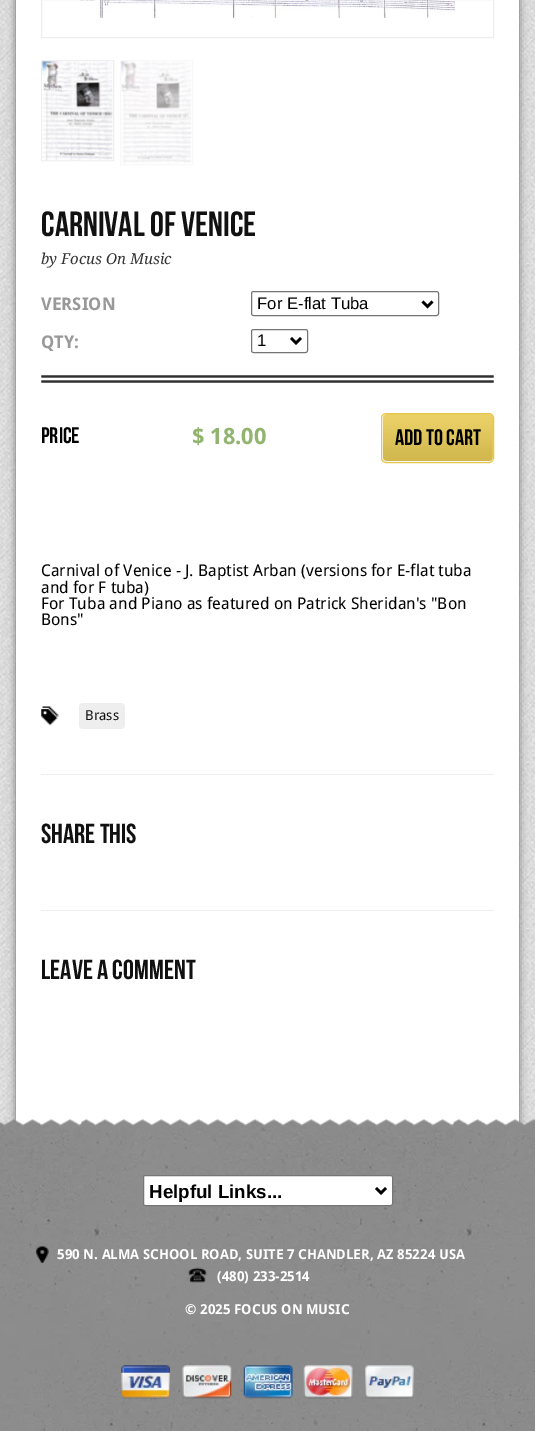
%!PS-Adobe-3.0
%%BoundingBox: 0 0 535 1431
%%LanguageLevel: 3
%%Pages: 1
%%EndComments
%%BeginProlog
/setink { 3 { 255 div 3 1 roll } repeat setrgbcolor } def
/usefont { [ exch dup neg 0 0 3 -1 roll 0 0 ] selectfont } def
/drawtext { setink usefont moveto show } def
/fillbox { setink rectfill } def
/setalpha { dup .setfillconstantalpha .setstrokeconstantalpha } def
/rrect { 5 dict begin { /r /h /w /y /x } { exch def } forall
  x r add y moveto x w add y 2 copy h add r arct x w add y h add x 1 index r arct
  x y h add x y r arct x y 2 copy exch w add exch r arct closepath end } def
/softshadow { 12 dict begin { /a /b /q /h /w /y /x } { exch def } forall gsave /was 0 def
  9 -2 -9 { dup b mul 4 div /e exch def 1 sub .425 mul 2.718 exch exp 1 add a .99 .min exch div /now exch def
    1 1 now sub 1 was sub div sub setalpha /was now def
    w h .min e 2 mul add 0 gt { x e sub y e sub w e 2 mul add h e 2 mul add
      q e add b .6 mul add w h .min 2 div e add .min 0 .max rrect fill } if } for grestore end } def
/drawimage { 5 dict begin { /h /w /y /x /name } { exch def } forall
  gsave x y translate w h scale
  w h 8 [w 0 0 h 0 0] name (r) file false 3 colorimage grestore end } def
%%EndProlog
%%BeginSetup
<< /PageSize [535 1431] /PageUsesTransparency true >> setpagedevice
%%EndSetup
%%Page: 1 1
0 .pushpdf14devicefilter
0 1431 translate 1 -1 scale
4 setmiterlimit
0 0 535 1431 255 255 255 fillbox
(assets/img1.rgb) 0 0 535 1126 drawimage
102 102 102 setink
16 -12 503 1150 0 4 1 softshadow
16 0 503 1126 255 255 255 fillbox
238 238 238 setink
41.5 -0.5 452 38 rectstroke
(assets/img2.rgb) 80 0 375 18 drawimage
41.5 60.5 72 100 rectstroke
(assets/img3.rgb) 42 61 71 100 drawimage
248 248 248 setink
120.5 60.5 72 104 rectstroke
(assets/img4.rgb) 121 61 71 103 drawimage
(Carnival of Venice) 41 236 /BebasNeue-Regular 35 17 17 17 drawtext
(by Focus On Music) 41 264 /DroidSerif-Italic 15 51 51 51 drawtext
(VERSION) 41 310 /DroidSans-Bold 17.5 153 153 153 drawtext
118 118 118 setink
251.5 291.5 187 24 2 rrect stroke
0 0 0 setink
2.5 setlinewidth
422.5 301.5 moveto 427.5 306.5 lineto 432.5 301.5 lineto stroke
(For E-flat Tuba) 257 309 /LiberationSans-Regular 16.75 0 0 0 drawtext
(QTY:) 41 348 /DroidSans-Bold 17.5 153 153 153 drawtext
118 118 118 setink
1 setlinewidth
251.5 329.5 56 23 2 rrect stroke
0 0 0 setink
2.5 setlinewidth
291 338 moveto 296 343 lineto 301 338 lineto stroke
(1) 257 346 /LiberationSans-Regular 16.75 0 0 0 drawtext
(assets/img5.rgb) 41 375 453 8 drawimage
(Price) 41 443 /BebasNeue-Regular 22.5 0 0 0 drawtext
($ 18.00) 192 444 /DroidSans-Bold 22.5 145 180 110 drawtext
230 200 77 setink
383 414 110 47 4 rrect fill
(assets/img6.rgb) 382 414 111 48 drawimage
1 setlinewidth
381.5 413.5 112 49 4.5 rrect stroke
(ADD TO CART) 395 445 /BebasNeue-Regular 22.5 0 0 0 drawtext
(Carnival of Venice - J. Baptist Arban \(versions for E-flat tuba) 41 576 /DroidSans-Regular 16.25 0 0 0 drawtext
(and for F tuba\)) 41 593 /DroidSans-Regular 16.25 0 0 0 drawtext
(For Tuba and Piano as featured on Patrick Sheridan's "Bon) 41 609 /DroidSans-Regular 16.25 0 0 0 drawtext
(Bons") 41 625 /DroidSans-Regular 16.25 0 0 0 drawtext
(assets/img7.rgb) 41 706 18 20 drawimage
238 238 238 setink
79 703 46 26 4 rrect fill
(Brass) 85 720 /DroidSans-Regular 13.75 17 17 17 drawtext
41 774 453 1 238 238 238 fillbox
(Share This) 41 843 /BebasNeue-Regular 27.5 17 17 17 drawtext
41 910 453 1 238 238 238 fillbox
(Leave a Comment) 41 979 /BebasNeue-Regular 27.5 17 17 17 drawtext
(assets/img8.rgb) 0 1119 535 312 drawimage
255 255 255 setink
143.5 1175.5 249 30 2 rrect gsave fill grestore
118 118 118 setink
stroke
0 0 0 setink
2.5 setlinewidth
376 1188 moveto 381 1193 lineto 386 1188 lineto stroke
(Helpful Links...) 149 1198 /LiberationSans-Bold 18.75 0 0 0 drawtext
(assets/img9.rgb) 36 1246 13 17 drawimage
(590 N. ALMA SCHOOL ROAD, SUITE 7 CHANDLER, AZ 85224 USA) 57 1259 /DroidSans-Bold 13.75 255 255 255 drawtext
(assets/img10.rgb) 188 1267 19 16 drawimage
(\(480\) 233-2514) 217 1281 /DroidSans-Bold 13.75 255 255 255 drawtext
(© 2025 FOCUS ON MUSIC) 185 1314 /DroidSans-Bold 13.75 255 255 255 drawtext
(assets/img11.rgb) 121 1365 49 34 drawimage
(assets/img12.rgb) 182 1365 50 34 drawimage
(assets/img13.rgb) 243 1365 50 34 drawimage
(assets/img14.rgb) 303 1365 50 34 drawimage
(assets/img15.rgb) 365 1365 49 34 drawimage
.poppdf14devicefilter showpage
%%EOF
